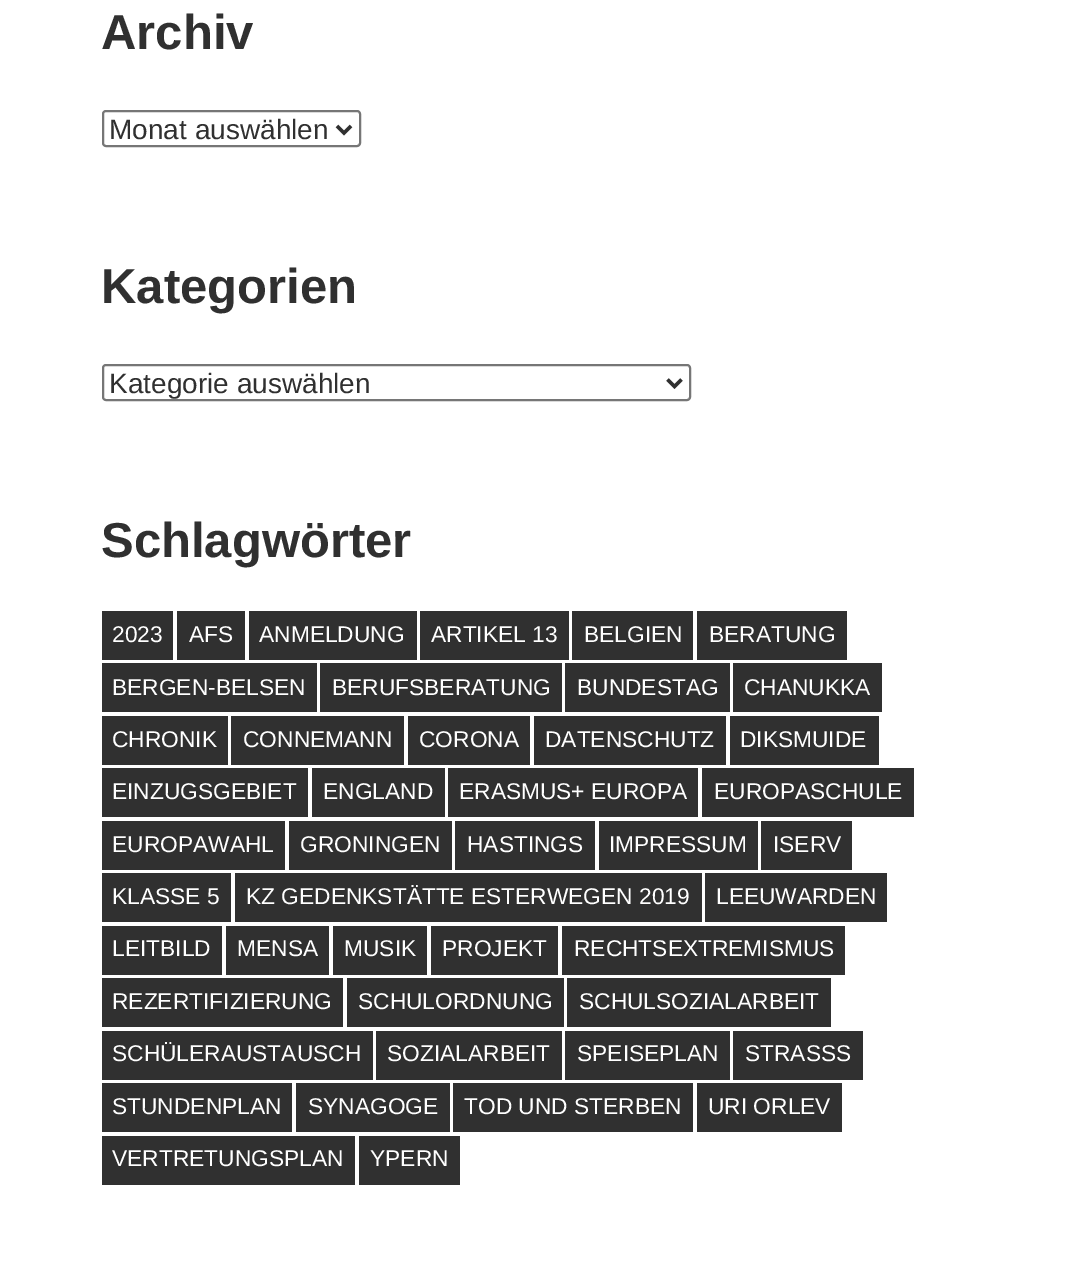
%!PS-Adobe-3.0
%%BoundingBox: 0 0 1076 1283
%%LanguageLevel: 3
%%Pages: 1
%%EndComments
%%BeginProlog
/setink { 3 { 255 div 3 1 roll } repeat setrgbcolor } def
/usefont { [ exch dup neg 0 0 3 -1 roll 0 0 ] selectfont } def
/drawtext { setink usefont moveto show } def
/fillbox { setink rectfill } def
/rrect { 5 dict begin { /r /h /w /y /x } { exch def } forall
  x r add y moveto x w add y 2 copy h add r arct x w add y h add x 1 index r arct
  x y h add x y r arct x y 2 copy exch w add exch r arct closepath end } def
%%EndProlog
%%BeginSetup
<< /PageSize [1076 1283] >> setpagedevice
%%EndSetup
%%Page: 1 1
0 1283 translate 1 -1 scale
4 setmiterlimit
0 0 1076 1283 255 255 255 fillbox
(Archiv) 101 49 /LiberationSans-Bold 49 48 48 48 drawtext
118 118 118 setink
2 setlinewidth
103 111 257 35 3 rrect stroke
48 48 48 setink
3.5 setlinewidth
337 126 moveto 344 133 lineto 351 126 lineto stroke
(Monat auswählen) 109 139 /LiberationSans-Regular 28 48 48 48 drawtext
(Kategorien) 101 303 /LiberationSans-Bold 49 48 48 48 drawtext
118 118 118 setink
2 setlinewidth
103 365 587 35 3 rrect stroke
48 48 48 setink
3.5 setlinewidth
667.5 379.5 moveto 674.5 386.5 lineto 681.5 379.5 lineto stroke
(Kategorie auswählen) 109 393 /LiberationSans-Regular 28 48 48 48 drawtext
(Schlagwörter) 101 557 /LiberationSans-Bold 49 48 48 48 drawtext
102 611 71 49 48 48 48 fillbox
(2023) 112 642 /LiberationSans-Regular 22.75 255 255 255 drawtext
177 611 68 49 48 48 48 fillbox
(AFS) 189 642 /LiberationSans-Regular 22.75 255 255 255 drawtext
249 611 168 49 48 48 48 fillbox
(ANMELDUNG) 259 642 /LiberationSans-Regular 22.75 255 255 255 drawtext
420 611 149 49 48 48 48 fillbox
(ARTIKEL 13) 431 642 /LiberationSans-Regular 22.75 255 255 255 drawtext
572 611 121 49 48 48 48 fillbox
(BELGIEN) 584 642 /LiberationSans-Regular 22.75 255 255 255 drawtext
697 611 150 49 48 48 48 fillbox
(BERATUNG) 709 642 /LiberationSans-Regular 22.75 255 255 255 drawtext
102 663 215 49 48 48 48 fillbox
(BERGEN-BELSEN) 112 695 /LiberationSans-Regular 22.75 255 255 255 drawtext
320 663 242 49 48 48 48 fillbox
(BERUFSBERATUNG) 332 695 /LiberationSans-Regular 22.75 255 255 255 drawtext
565 663 165 49 48 48 48 fillbox
(BUNDESTAG) 577 695 /LiberationSans-Regular 22.75 255 255 255 drawtext
733 663 149 49 48 48 48 fillbox
(CHANUKKA) 744 695 /LiberationSans-Regular 22.75 255 255 255 drawtext
102 716 126 49 48 48 48 fillbox
(CHRONIK) 112 747 /LiberationSans-Regular 22.75 255 255 255 drawtext
231 716 173 49 48 48 48 fillbox
(CONNEMANN) 243 747 /LiberationSans-Regular 22.75 255 255 255 drawtext
408 716 122 49 48 48 48 fillbox
(CORONA) 419 747 /LiberationSans-Regular 22.75 255 255 255 drawtext
534 716 192 49 48 48 48 fillbox
(DATENSCHUTZ) 545 747 /LiberationSans-Regular 22.75 255 255 255 drawtext
730 716 149 49 48 48 48 fillbox
(DIKSMUIDE) 740 747 /LiberationSans-Regular 22.75 255 255 255 drawtext
102 768 206 49 48 48 48 fillbox
(EINZUGSGEBIET) 112 799 /LiberationSans-Regular 22.75 255 255 255 drawtext
312 768 133 49 48 48 48 fillbox
(ENGLAND) 323 799 /LiberationSans-Regular 22.75 255 255 255 drawtext
448 768 250 49 48 48 48 fillbox
(ERASMUS+ EUROPA) 459 799 /LiberationSans-Regular 22.75 255 255 255 drawtext
702 768 212 49 48 48 48 fillbox
(EUROPASCHULE) 714 799 /LiberationSans-Regular 22.75 255 255 255 drawtext
102 821 183 49 48 48 48 fillbox
(EUROPAWAHL) 112 852 /LiberationSans-Regular 22.75 255 255 255 drawtext
289 821 163 49 48 48 48 fillbox
(GRONINGEN) 300 852 /LiberationSans-Regular 22.75 255 255 255 drawtext
455 821 140 49 48 48 48 fillbox
(HASTINGS) 467 852 /LiberationSans-Regular 22.75 255 255 255 drawtext
599 821 159 49 48 48 48 fillbox
(IMPRESSUM) 609 852 /LiberationSans-Regular 22.75 255 255 255 drawtext
761 821 91 49 48 48 48 fillbox
(ISERV) 773 852 /LiberationSans-Regular 22.75 255 255 255 drawtext
102 873 129 49 48 48 48 fillbox
(KLASSE 5) 112 904 /LiberationSans-Regular 22.75 255 255 255 drawtext
235 873 467 49 48 48 48 fillbox
(KZ GEDENKSTÄTTE ESTERWEGEN 2019) 246 904 /LiberationSans-Regular 22.75 255 255 255 drawtext
705 873 182 49 48 48 48 fillbox
(LEEUWARDEN) 716 904 /LiberationSans-Regular 22.75 255 255 255 drawtext
102 926 120 49 48 48 48 fillbox
(LEITBILD) 112 956 /LiberationSans-Regular 22.75 255 255 255 drawtext
226 926 103 49 48 48 48 fillbox
(MENSA) 237 956 /LiberationSans-Regular 22.75 255 255 255 drawtext
333 926 94 49 48 48 48 fillbox
(MUSIK) 344 956 /LiberationSans-Regular 22.75 255 255 255 drawtext
431 926 127 49 48 48 48 fillbox
(PROJEKT) 442 956 /LiberationSans-Regular 22.75 255 255 255 drawtext
562 926 283 49 48 48 48 fillbox
(RECHTSEXTREMISMUS) 574 956 /LiberationSans-Regular 22.75 255 255 255 drawtext
102 978 241 49 48 48 48 fillbox
(REZERTIFIZIERUNG) 112 1009 /LiberationSans-Regular 22.75 255 255 255 drawtext
347 978 217 49 48 48 48 fillbox
(SCHULORDNUNG) 358 1009 /LiberationSans-Regular 22.75 255 255 255 drawtext
567 978 264 49 48 48 48 fillbox
(SCHULSOZIALARBEIT) 579 1009 /LiberationSans-Regular 22.75 255 255 255 drawtext
102 1031 271 49 48 48 48 fillbox
(SCHÜLERAUSTAUSCH) 112 1061 /LiberationSans-Regular 22.75 255 255 255 drawtext
376 1031 186 49 48 48 48 fillbox
(SOZIALARBEIT) 387 1061 /LiberationSans-Regular 22.75 255 255 255 drawtext
565 1031 165 49 48 48 48 fillbox
(SPEISEPLAN) 577 1061 /LiberationSans-Regular 22.75 255 255 255 drawtext
733 1031 130 49 48 48 48 fillbox
(STRASSS) 745 1061 /LiberationSans-Regular 22.75 255 255 255 drawtext
102 1083 190 49 48 48 48 fillbox
(STUNDENPLAN) 112 1114 /LiberationSans-Regular 22.75 255 255 255 drawtext
296 1083 154 49 48 48 48 fillbox
(SYNAGOGE) 308 1114 /LiberationSans-Regular 22.75 255 255 255 drawtext
453 1083 240 49 48 48 48 fillbox
(TOD UND STERBEN) 464 1114 /LiberationSans-Regular 22.75 255 255 255 drawtext
697 1083 145 49 48 48 48 fillbox
(URI ORLEV) 708 1114 /LiberationSans-Regular 22.75 255 255 255 drawtext
102 1136 253 49 48 48 48 fillbox
(VERTRETUNGSPLAN) 112 1166 /LiberationSans-Regular 22.75 255 255 255 drawtext
359 1136 101 49 48 48 48 fillbox
(YPERN) 370 1166 /LiberationSans-Regular 22.75 255 255 255 drawtext
showpage
%%EOF
